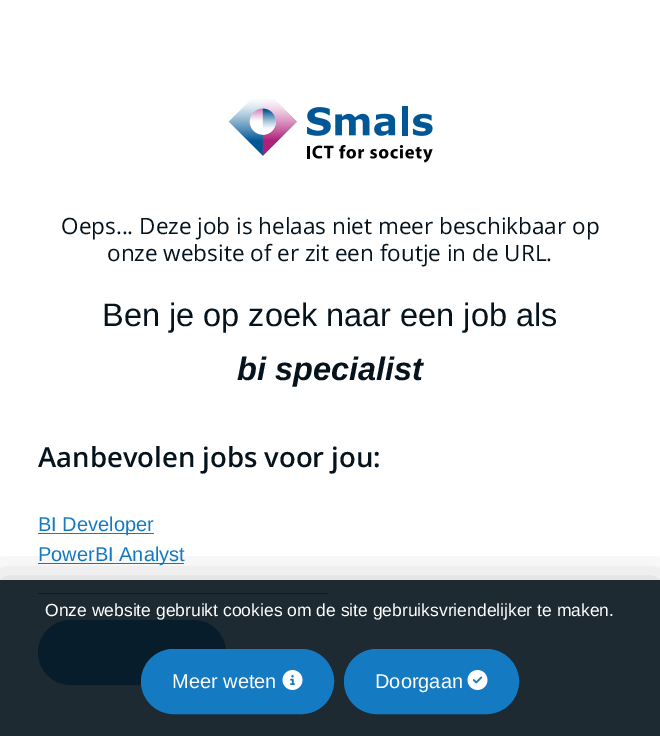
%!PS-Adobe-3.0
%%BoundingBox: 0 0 660 736
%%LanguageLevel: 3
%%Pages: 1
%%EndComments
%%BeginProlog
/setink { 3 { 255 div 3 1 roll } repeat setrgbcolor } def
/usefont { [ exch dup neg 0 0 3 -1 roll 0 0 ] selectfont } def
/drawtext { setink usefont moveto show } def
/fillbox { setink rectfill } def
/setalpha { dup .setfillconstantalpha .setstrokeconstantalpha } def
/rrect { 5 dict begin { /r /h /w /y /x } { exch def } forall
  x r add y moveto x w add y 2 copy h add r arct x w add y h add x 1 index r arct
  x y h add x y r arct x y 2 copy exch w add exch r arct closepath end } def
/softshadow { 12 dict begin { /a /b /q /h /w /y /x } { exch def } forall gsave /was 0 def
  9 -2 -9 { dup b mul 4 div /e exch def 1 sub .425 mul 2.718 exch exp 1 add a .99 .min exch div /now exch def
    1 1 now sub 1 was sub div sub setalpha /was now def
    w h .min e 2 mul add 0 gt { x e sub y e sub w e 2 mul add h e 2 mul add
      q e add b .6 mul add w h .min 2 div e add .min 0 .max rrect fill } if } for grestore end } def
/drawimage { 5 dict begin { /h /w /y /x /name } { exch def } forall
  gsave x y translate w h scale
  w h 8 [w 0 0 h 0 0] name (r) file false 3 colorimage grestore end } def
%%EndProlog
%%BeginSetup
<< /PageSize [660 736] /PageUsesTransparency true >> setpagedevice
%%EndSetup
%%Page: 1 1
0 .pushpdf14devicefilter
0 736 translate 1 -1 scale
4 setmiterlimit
0 0 660 736 255 255 255 fillbox
(assets/img1.rgb) 228 99 205 64 drawimage
(Oeps... Deze job is helaas niet meer beschikbaar op) 61 234 /OpenSans-Regular 22.5 6 19 28 drawtext
(onze website of er zit een foutje in de URL.) 107 261 /OpenSans-Regular 22.5 6 19 28 drawtext
(Ben je op zoek naar een job als) 102 326 /LiberationSans-Regular 32.5 6 19 28 drawtext
(bi specialist) 237 380 /LiberationSans-BoldItalic 32.5 6 19 28 drawtext
(Aanbevolen jobs voor jou:) 38 467 /OpenSans-SemiBold 27.5 6 19 28 drawtext
38 533 116 1 20 122 193 fillbox
(BI Developer) 38 531 /LiberationSans-Regular 20 20 122 193 drawtext
38 563 146 1 20 122 193 fillbox
(PowerBI Analyst) 38 561 /LiberationSans-Regular 20 20 122 193 drawtext
38 593 290 1 20 122 193 fillbox
38.5 620.5 187 64 32 rrect gsave fill grestore
stroke
gsave
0 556 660 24 rectclip
0 0 0 setink
0 580 660 156 0 19 0.2 softshadow
grestore
0.9 setalpha
0 580 660 156 6 19 28 fillbox
1 setalpha
(Onze website gebruikt cookies om de site gebruiksvriendelijker te maken.) 45 616 /LiberationSans-Regular 17.5 255 255 255 drawtext
20 122 193 setink
141.5 649.5 192 64 32 rrect gsave fill grestore
stroke
(Meer weten) 172 688 /LiberationSans-Regular 20 255 255 255 drawtext
(assets/img2.rgb) 282 670 21 20 drawimage
20 122 193 setink
344.5 649.5 174 64 32 rrect gsave fill grestore
stroke
(Doorgaan) 375 688 /LiberationSans-Regular 20 255 255 255 drawtext
(assets/img3.rgb) 467 670 21 20 drawimage
.poppdf14devicefilter showpage
%%EOF
